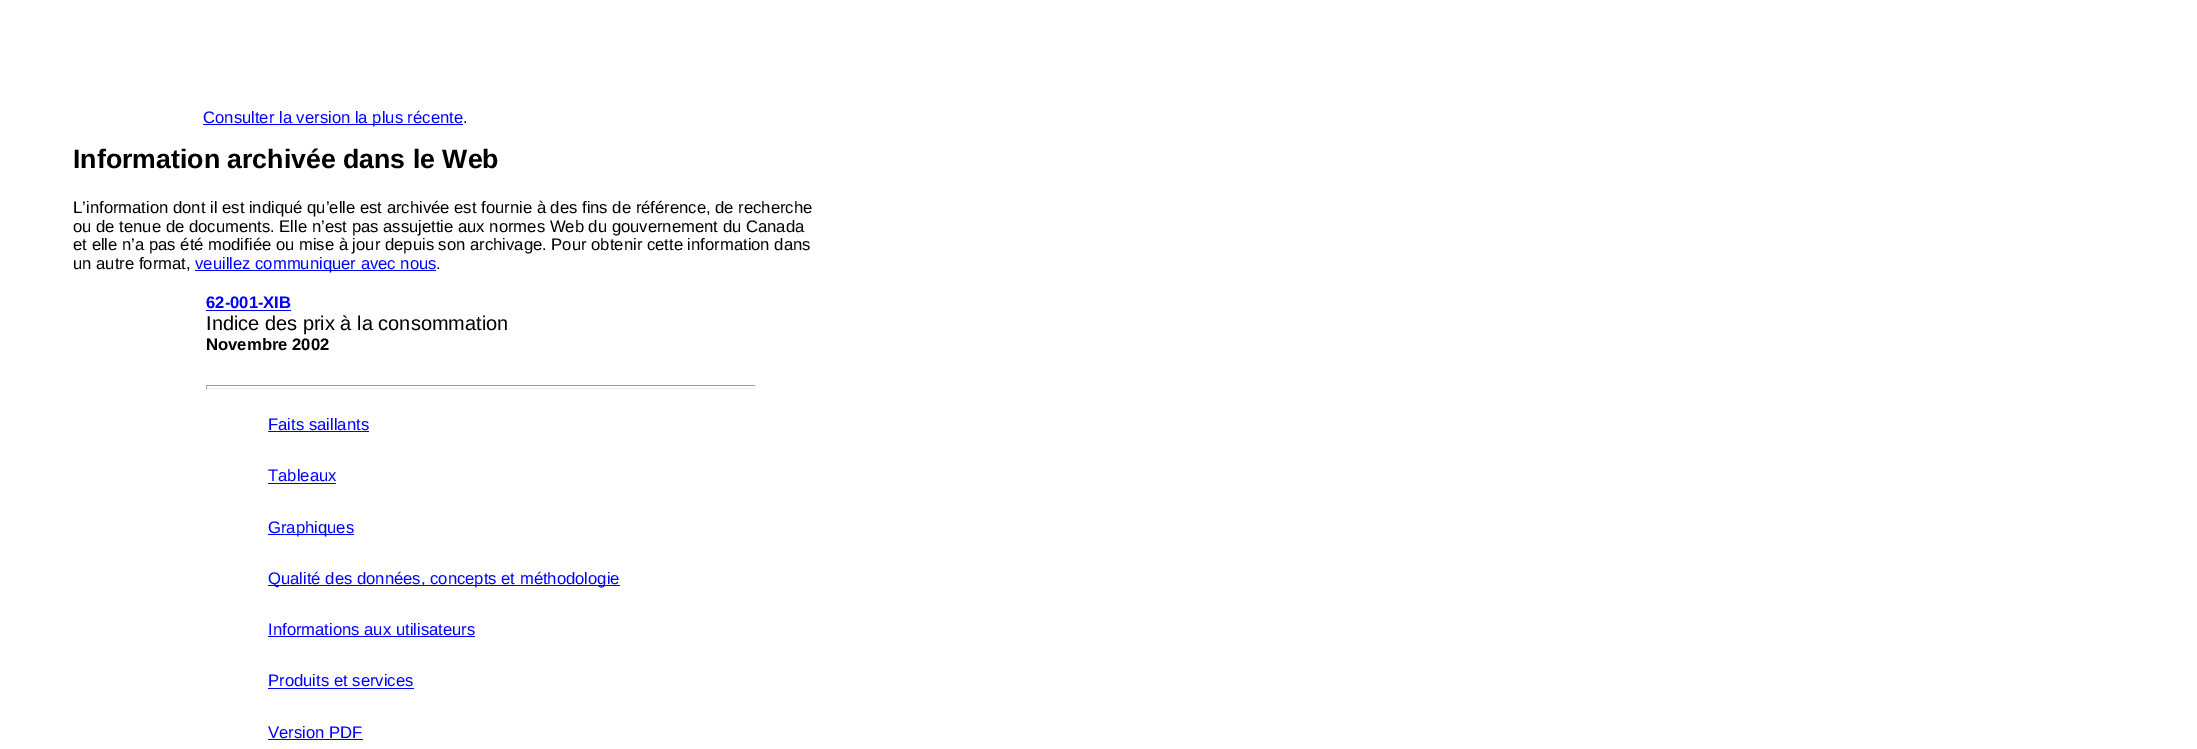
%!PS-Adobe-3.0
%%BoundingBox: 0 0 2197 749
%%LanguageLevel: 3
%%Pages: 1
%%EndComments
%%BeginProlog
/setink { 3 { 255 div 3 1 roll } repeat setrgbcolor } def
/usefont { [ exch dup neg 0 0 3 -1 roll 0 0 ] selectfont } def
/drawtext { setink usefont moveto show } def
/fillbox { setink rectfill } def
%%EndProlog
%%BeginSetup
<< /PageSize [2197 749] >> setpagedevice
%%EndSetup
%%Page: 1 1
0 749 translate 1 -1 scale
4 setmiterlimit
0 0 2197 749 255 255 255 fillbox
203 124 260 1 0 0 255 fillbox
(Consulter la version la plus récente) 203 123 /LiberationSans-Regular 16.65 0 0 255 drawtext
(.) 463 123 /LiberationSans-Regular 16.65 0 0 0 drawtext
(Information archivée dans le Web) 73 168 /LiberationSans-Bold 26.7 0 0 0 drawtext
(L’information dont il est indiqué qu’elle est archivée est fournie à des fins de référence, de recherche) 73 213 /LiberationSans-Regular 16.65 0 0 0 drawtext
(ou de tenue de documents. Elle n’est pas assujettie aux normes Web du gouvernement du Canada) 73 232 /LiberationSans-Regular 16.65 0 0 0 drawtext
(et elle n’a pas été modifiée ou mise à jour depuis son archivage. Pour obtenir cette information dans) 73 250 /LiberationSans-Regular 16.65 0 0 0 drawtext
(un autre format,) 73 269 /LiberationSans-Regular 16.65 0 0 0 drawtext
195 270 241 1 0 0 255 fillbox
(veuillez communiquer avec nous) 195 269 /LiberationSans-Regular 16.65 0 0 255 drawtext
(.) 436 269 /LiberationSans-Regular 16.65 0 0 0 drawtext
(62-001-XIB) 206 308 /LiberationSans-Bold 16.65 0 0 255 drawtext
206 310 85 1 0 0 255 fillbox
(Indice des prix à la consommation) 206 330 /LiberationSans-Regular 20 0 0 0 drawtext
(Novembre 2002) 206 350 /LiberationSans-Bold 16.65 0 0 0 drawtext
206 385 550 1 159 159 159 fillbox
755 385 1 4 238 238 238 fillbox
206 388 550 1 238 238 238 fillbox
206 385 1 4 159 159 159 fillbox
(Faits saillants) 268 430 /LiberationSans-Regular 16.65 0 0 255 drawtext
268 431 101 1 0 0 255 fillbox
(Tableaux) 268 481 /LiberationSans-Regular 16.65 0 0 255 drawtext
268 483 68 1 0 0 255 fillbox
268 534 86 1 0 0 255 fillbox
(Graphiques) 268 533 /LiberationSans-Regular 16.65 0 0 255 drawtext
268 585 352 1 0 0 255 fillbox
(Qualité des données, concepts et méthodologie) 268 584 /LiberationSans-Regular 16.65 0 0 255 drawtext
(Informations aux utilisateurs) 268 635 /LiberationSans-Regular 16.65 0 0 255 drawtext
268 636 207 1 0 0 255 fillbox
(Produits et services) 268 686 /LiberationSans-Regular 16.65 0 0 255 drawtext
268 688 146 1 0 0 255 fillbox
(Version PDF) 268 738 /LiberationSans-Regular 16.65 0 0 255 drawtext
268 739 95 1 0 0 255 fillbox
showpage
%%EOF
